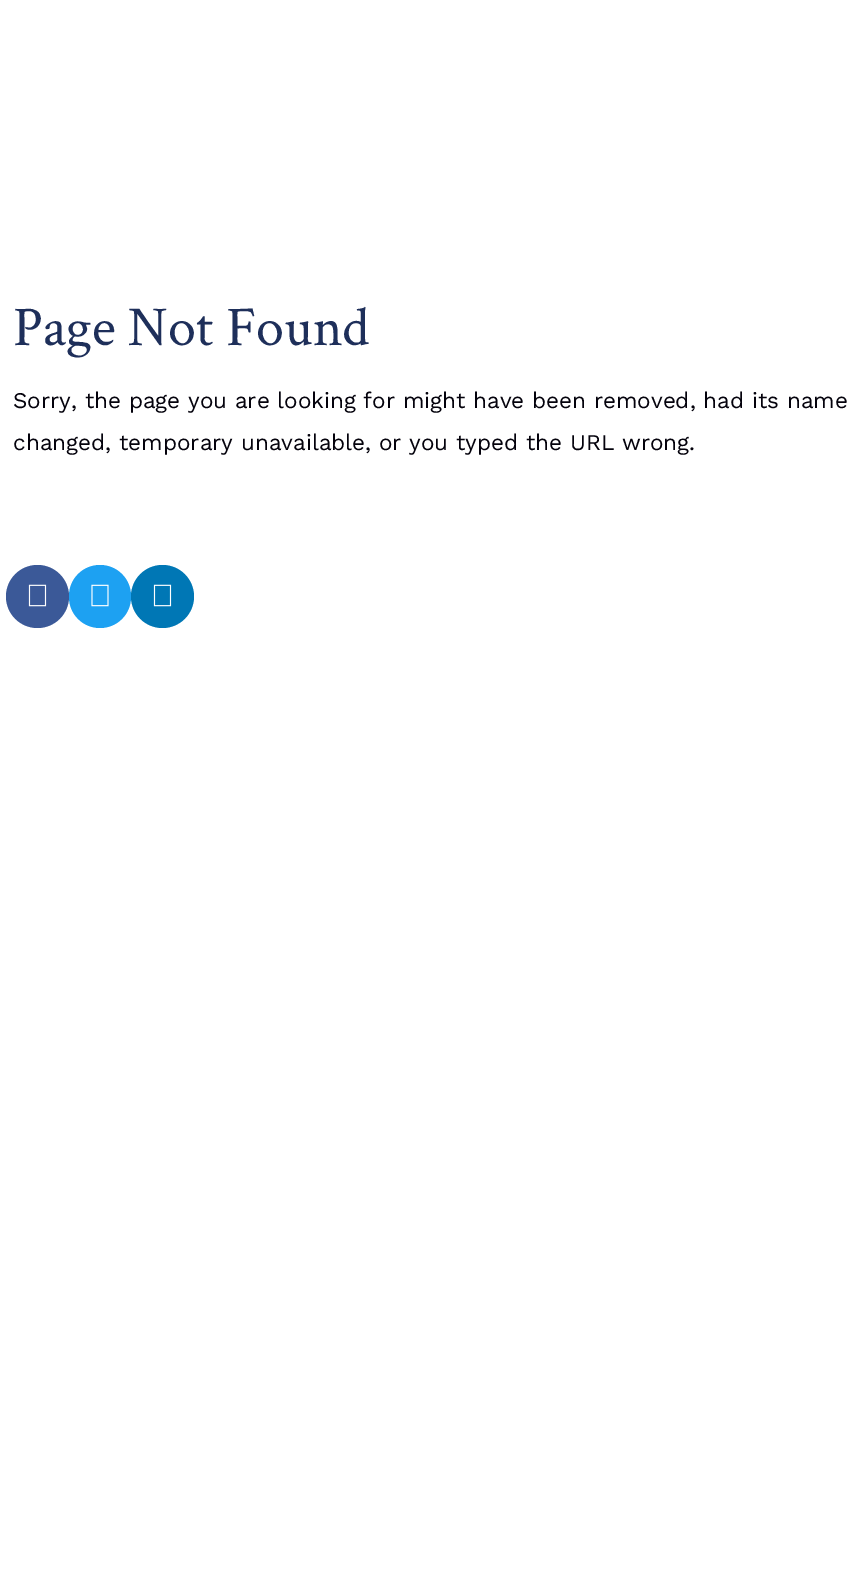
%!PS-Adobe-3.0
%%BoundingBox: 0 0 863 1581
%%LanguageLevel: 3
%%Pages: 1
%%EndComments
%%BeginProlog
/setink { 3 { 255 div 3 1 roll } repeat setrgbcolor } def
/usefont { [ exch dup neg 0 0 3 -1 roll 0 0 ] selectfont } def
/drawtext { setink usefont moveto show } def
/fillbox { setink rectfill } def
/disc { newpath 0 360 arc closepath } def
/rrect { 5 dict begin { /r /h /w /y /x } { exch def } forall
  x r add y moveto x w add y 2 copy h add r arct x w add y h add x 1 index r arct
  x y h add x y r arct x y 2 copy exch w add exch r arct closepath end } def
/drawimage { 5 dict begin { /h /w /y /x /name } { exch def } forall
  gsave x y translate w h scale
  w h 8 [w 0 0 h 0 0] name (r) file false 3 colorimage grestore end } def
%%EndProlog
%%BeginSetup
<< /PageSize [863 1581] >> setpagedevice
%%EndSetup
%%Page: 1 1
0 1581 translate 1 -1 scale
4 setmiterlimit
0 0 863 1581 255 255 255 fillbox
(Page Not Found) 13 345 /CrimsonText-Regular 56.25 30 47 90 drawtext
(Sorry, the page you are looking for might have been removed, had its name) 13 408 /WorkSans-Regular 22.5 4 2 12 drawtext
(changed, temporary unavailable, or you typed the URL wrong.) 13 450 /WorkSans-Regular 22.5 4 2 12 drawtext
59 89 152 setink
37.5 596.5 31.5 disc fill
(assets/img1.rgb) 28 584 19 23 drawimage
29 161 242 setink
69 565 62 63 31 rrect fill
(assets/img2.rgb) 91 584 18 23 drawimage
0 119 181 setink
162.5 596.5 31.5 disc fill
(assets/img3.rgb) 153 584 19 23 drawimage
showpage
%%EOF
